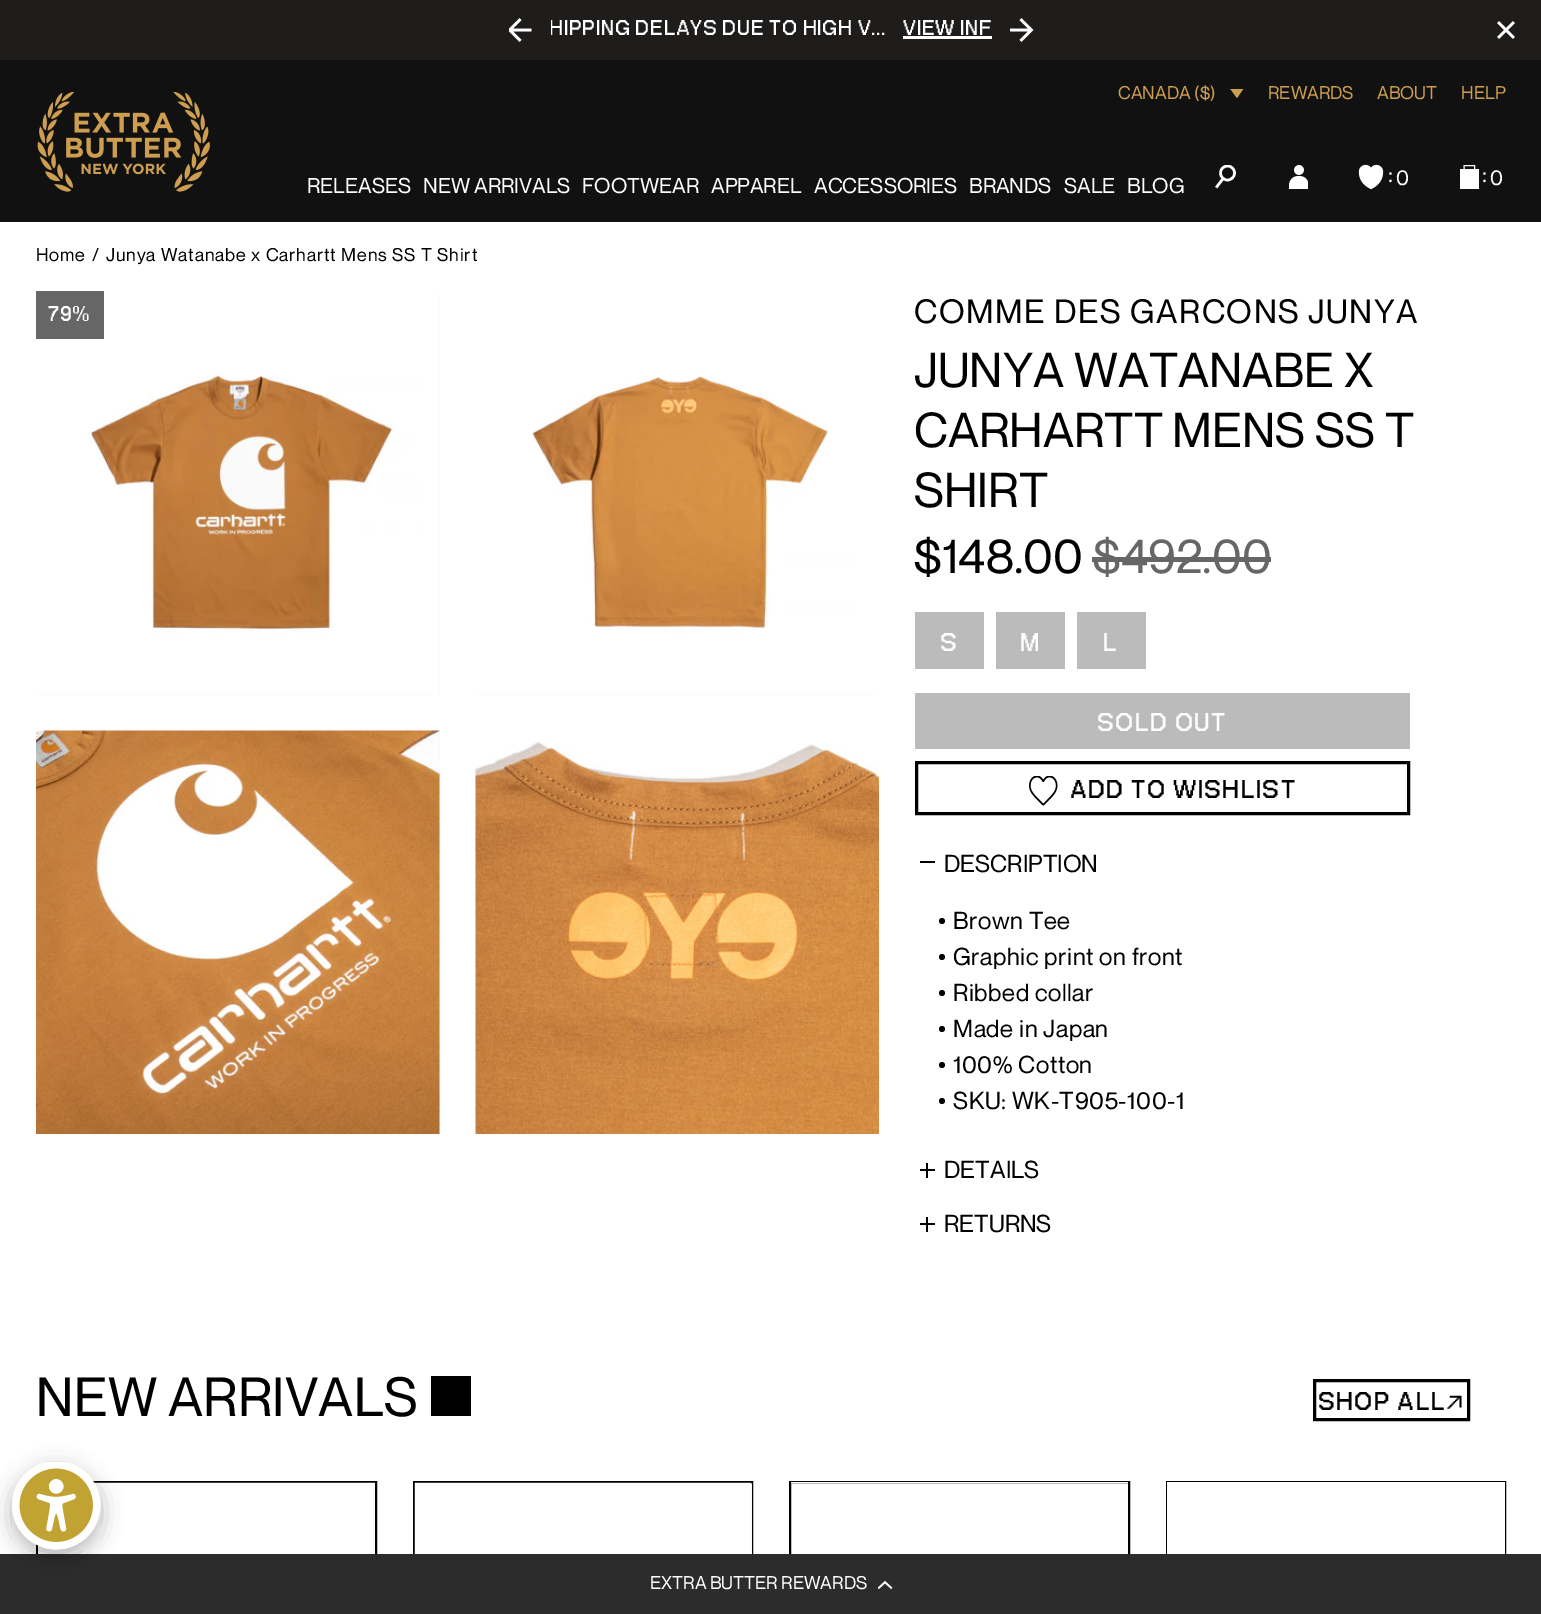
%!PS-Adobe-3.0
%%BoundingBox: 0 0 1541 1614
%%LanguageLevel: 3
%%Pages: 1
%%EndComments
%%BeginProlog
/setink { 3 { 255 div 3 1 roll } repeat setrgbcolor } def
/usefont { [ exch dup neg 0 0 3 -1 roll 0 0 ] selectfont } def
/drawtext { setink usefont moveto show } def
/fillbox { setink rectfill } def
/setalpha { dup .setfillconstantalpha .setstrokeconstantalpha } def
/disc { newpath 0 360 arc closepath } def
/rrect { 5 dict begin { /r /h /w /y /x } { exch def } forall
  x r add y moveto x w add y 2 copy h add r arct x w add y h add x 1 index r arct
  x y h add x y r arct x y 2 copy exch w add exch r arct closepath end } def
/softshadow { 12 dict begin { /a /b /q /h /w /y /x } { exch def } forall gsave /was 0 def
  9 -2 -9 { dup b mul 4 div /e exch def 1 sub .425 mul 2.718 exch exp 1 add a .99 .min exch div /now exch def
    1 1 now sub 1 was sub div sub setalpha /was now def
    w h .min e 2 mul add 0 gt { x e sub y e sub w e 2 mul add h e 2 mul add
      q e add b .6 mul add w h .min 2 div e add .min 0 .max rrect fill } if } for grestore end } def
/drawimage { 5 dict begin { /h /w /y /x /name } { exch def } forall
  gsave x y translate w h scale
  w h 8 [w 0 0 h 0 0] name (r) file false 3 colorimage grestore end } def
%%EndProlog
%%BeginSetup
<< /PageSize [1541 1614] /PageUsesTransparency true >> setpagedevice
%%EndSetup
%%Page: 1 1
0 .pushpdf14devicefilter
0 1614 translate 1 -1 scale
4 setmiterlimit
0 0 1541 1614 255 255 255 fillbox
0 0 1541 60 30 29 28 fillbox
/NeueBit-Bold 30 usefont
255 255 255 setink
549 35 moveto 0.75 0 (HIPPING DELAYS DUE TO HIGH V...) ashow
550 20 1 15 30 29 28 fillbox
(assets/img1.rgb) 509 18 23 24 drawimage
255 255 255 setink
903 35 moveto 0.75 0 (VIEW INF) ashow
903 36 89 3 255 255 255 fillbox
(assets/img2.rgb) 1010 18 24 24 drawimage
(assets/img3.rgb) 1497 21 18 18 drawimage
0 60 1541 162 17 17 17 fillbox
(CANADA \($\)) 1118 99 /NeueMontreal-Regular 18 205 158 79 drawtext
gsave
1230 89 14 10 rectclip
1230 88.5 moveto 1243.5 88.5 lineto 1237 98 lineto closepath eofill
grestore
(REWARDS) 1268 99 /NeueMontreal-Regular 18 205 158 79 drawtext
(ABOUT) 1377 99 /NeueMontreal-Regular 18 205 158 79 drawtext
(HELP) 1461 99 /NeueMontreal-Regular 18 205 158 79 drawtext
(assets/img4.rgb) 37 92 173 100 drawimage
(RELEASES) 307 193 /NeueMontreal-Regular 21 255 255 255 drawtext
(NEW ARRIVALS) 423 193 /NeueMontreal-Regular 21 255 255 255 drawtext
(FOOTWEAR) 582 193 /NeueMontreal-Regular 21 255 255 255 drawtext
(APPAREL) 711 193 /NeueMontreal-Regular 21 255 255 255 drawtext
(ACCESSORIES) 814 193 /NeueMontreal-Regular 21 255 255 255 drawtext
(BRANDS) 969 193 /NeueMontreal-Regular 21 255 255 255 drawtext
(SALE) 1064 193 /NeueMontreal-Regular 21 255 255 255 drawtext
(BLOG) 1127 193 /NeueMontreal-Regular 21 255 255 255 drawtext
gsave
1215 165 23 24 rectclip
2.5 setlinewidth
1227.5 173 7 disc stroke
grestore
2.5 setlinewidth
2 setlinecap
1222 180 moveto 1217 186.5 lineto stroke
(assets/img5.rgb) 1289 165 19 24 drawimage
(assets/img6.rgb) 1358 164 26 26 drawimage
(:) 1388 182 /NeueMontreal-Regular 24 255 255 255 drawtext
/NeueMontreal-Regular 21 usefont
1396 185 moveto 0.9 0 (0) ashow
1460 169 19 20 255 255 255 fillbox
1 setlinewidth
0 setlinecap
1464 165.5 moveto 1474.5 165.5 lineto 1474.5 173 lineto 1464 173 lineto closepath stroke
(:) 1482 182 /NeueMontreal-Regular 24 255 255 255 drawtext
/NeueMontreal-Regular 21 usefont
1490 185 moveto 0.9 0 (0) ashow
/NeueMontreal-Regular 18 usefont
0 0 0 setink
36 261 moveto 0.9 0 (Home) ashow
92 261 moveto 0.9 0 (/) ashow
106 261 moveto 0.9 0 (Junya Watanabe x Carhartt Mens SS T Shirt) ashow
36 291 404 404 246 246 247 fillbox
(assets/img7.rgb) 36 291 404 404 drawimage
476 694 403 1 246 246 247 fillbox
(assets/img8.rgb) 476 291 403 404 drawimage
439 731 1 403 246 246 247 fillbox
(assets/img9.rgb) 36 730 404 404 drawimage
(assets/img10.rgb) 475 731 404 403 drawimage
36 291 68 48 102 102 102 fillbox
/NeueBit-Bold 30 usefont
255 255 255 setink
48 321 moveto 1 0 (79%) ashow
/NeueMontreal-Regular 33 usefont
0 0 0 setink
914 323 moveto 1.5 0 (COMME DES GARCONS JUNYA) ashow
(JUNYA WATANABE X) 914 387 /NeueMontreal-Regular 48 0 0 0 drawtext
(CARHARTT MENS SS T) 914 447 /NeueMontreal-Regular 48 0 0 0 drawtext
(SHIRT) 914 507 /NeueMontreal-Regular 48 0 0 0 drawtext
($148.00) 914 573 /NeueMontreal-Regular 48 0 0 0 drawtext
($492.00) 1093 573 /NeueMontreal-Regular 48 102 102 102 drawtext
1092 557 179 5 102 102 102 fillbox
915 612 69 57 187 187 187 fillbox
/NeueBit-Bold 36 usefont
255 255 255 setink
940 651 moveto 1.5 0 (S) ashow
996 612 69 57 187 187 187 fillbox
255 255 255 setink
1020 651 moveto 1.5 0 (M) ashow
1077 612 69 57 187 187 187 fillbox
255 255 255 setink
1103 651 moveto 1.5 0 (L) ashow
915 693 495 56 187 187 187 fillbox
255 255 255 setink
1097 731 moveto 1.5 0 (SOLD OUT) ashow
0 0 0 setink
3 setlinewidth
916.5 762.5 492 51 rectstroke
(assets/img11.rgb) 1029 776 29 30 drawimage
1070 798 moveto 1.5 0 (ADD TO WISHLIST) ashow
920 861 15 2 0 0 0 fillbox
(DESCRIPTION) 944 872 /NeueMontreal-Regular 24 0 0 0 drawtext
942 921 3 disc fill
953 929 moveto 0.6 0 (Brown Tee) ashow
942 957 3 disc fill
953 965 moveto 0.6 0 (Graphic print on front) ashow
942 993 3 disc fill
953 1001 moveto 0.6 0 (Ribbed collar) ashow
942 1029 3 disc fill
953 1037 moveto 0.6 0 (Made in Japan) ashow
942 1065 3 disc fill
953 1073 moveto 0.6 0 (100% Cotton) ashow
942 1101 3 disc fill
953 1109 moveto 0.6 0 (SKU: WK-T905-100-1) ashow
920 1169 15 2 0 0 0 fillbox
926 1163 2 15 0 0 0 fillbox
(DETAILS) 944 1178 /NeueMontreal-Regular 24 0 0 0 drawtext
920 1223 15 2 0 0 0 fillbox
926 1217 2 15 0 0 0 fillbox
(RETURNS) 944 1232 /NeueMontreal-Regular 24 0 0 0 drawtext
/NeueMontreal-Regular 54 usefont
36 1416 moveto 0.25 0 (NEW ARRIVALS) ashow
431 1376 40 40 0 0 0 fillbox
1314.5 1380.5 154 39 rectstroke
/NeueBit-Bold 36 usefont
1318 1410 moveto 1.5 0 (SHOP ALL↗) ashow
2 setlinewidth
37 1482 339 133 rectstroke
(assets/img12.rgb) 38 1482 337 72 drawimage
414 1482 338 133 rectstroke
751 1484 1 70 246 246 247 fillbox
(assets/img13.rgb) 414 1482 338 72 drawimage
0 0 0 setink
790 1482 339 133 rectstroke
791 1482 337 1 255 255 255 fillbox
0 0 0 setink
1167 1482 338 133 rectstroke
1167 1482 338 72 255 255 255 fillbox
0 1554 1541 60 44 44 44 fillbox
(EXTRA BUTTER REWARDS) 650 1589 /NeueMontreal-Regular 18 255 255 255 drawtext
(assets/img14.rgb) 878 1580 15 10 drawimage
0 0 0 setink
12 1469 89 88 44 11 0.3 softshadow
(assets/img15.rgb) 12 1462 89 88 drawimage
.poppdf14devicefilter showpage
%%EOF
